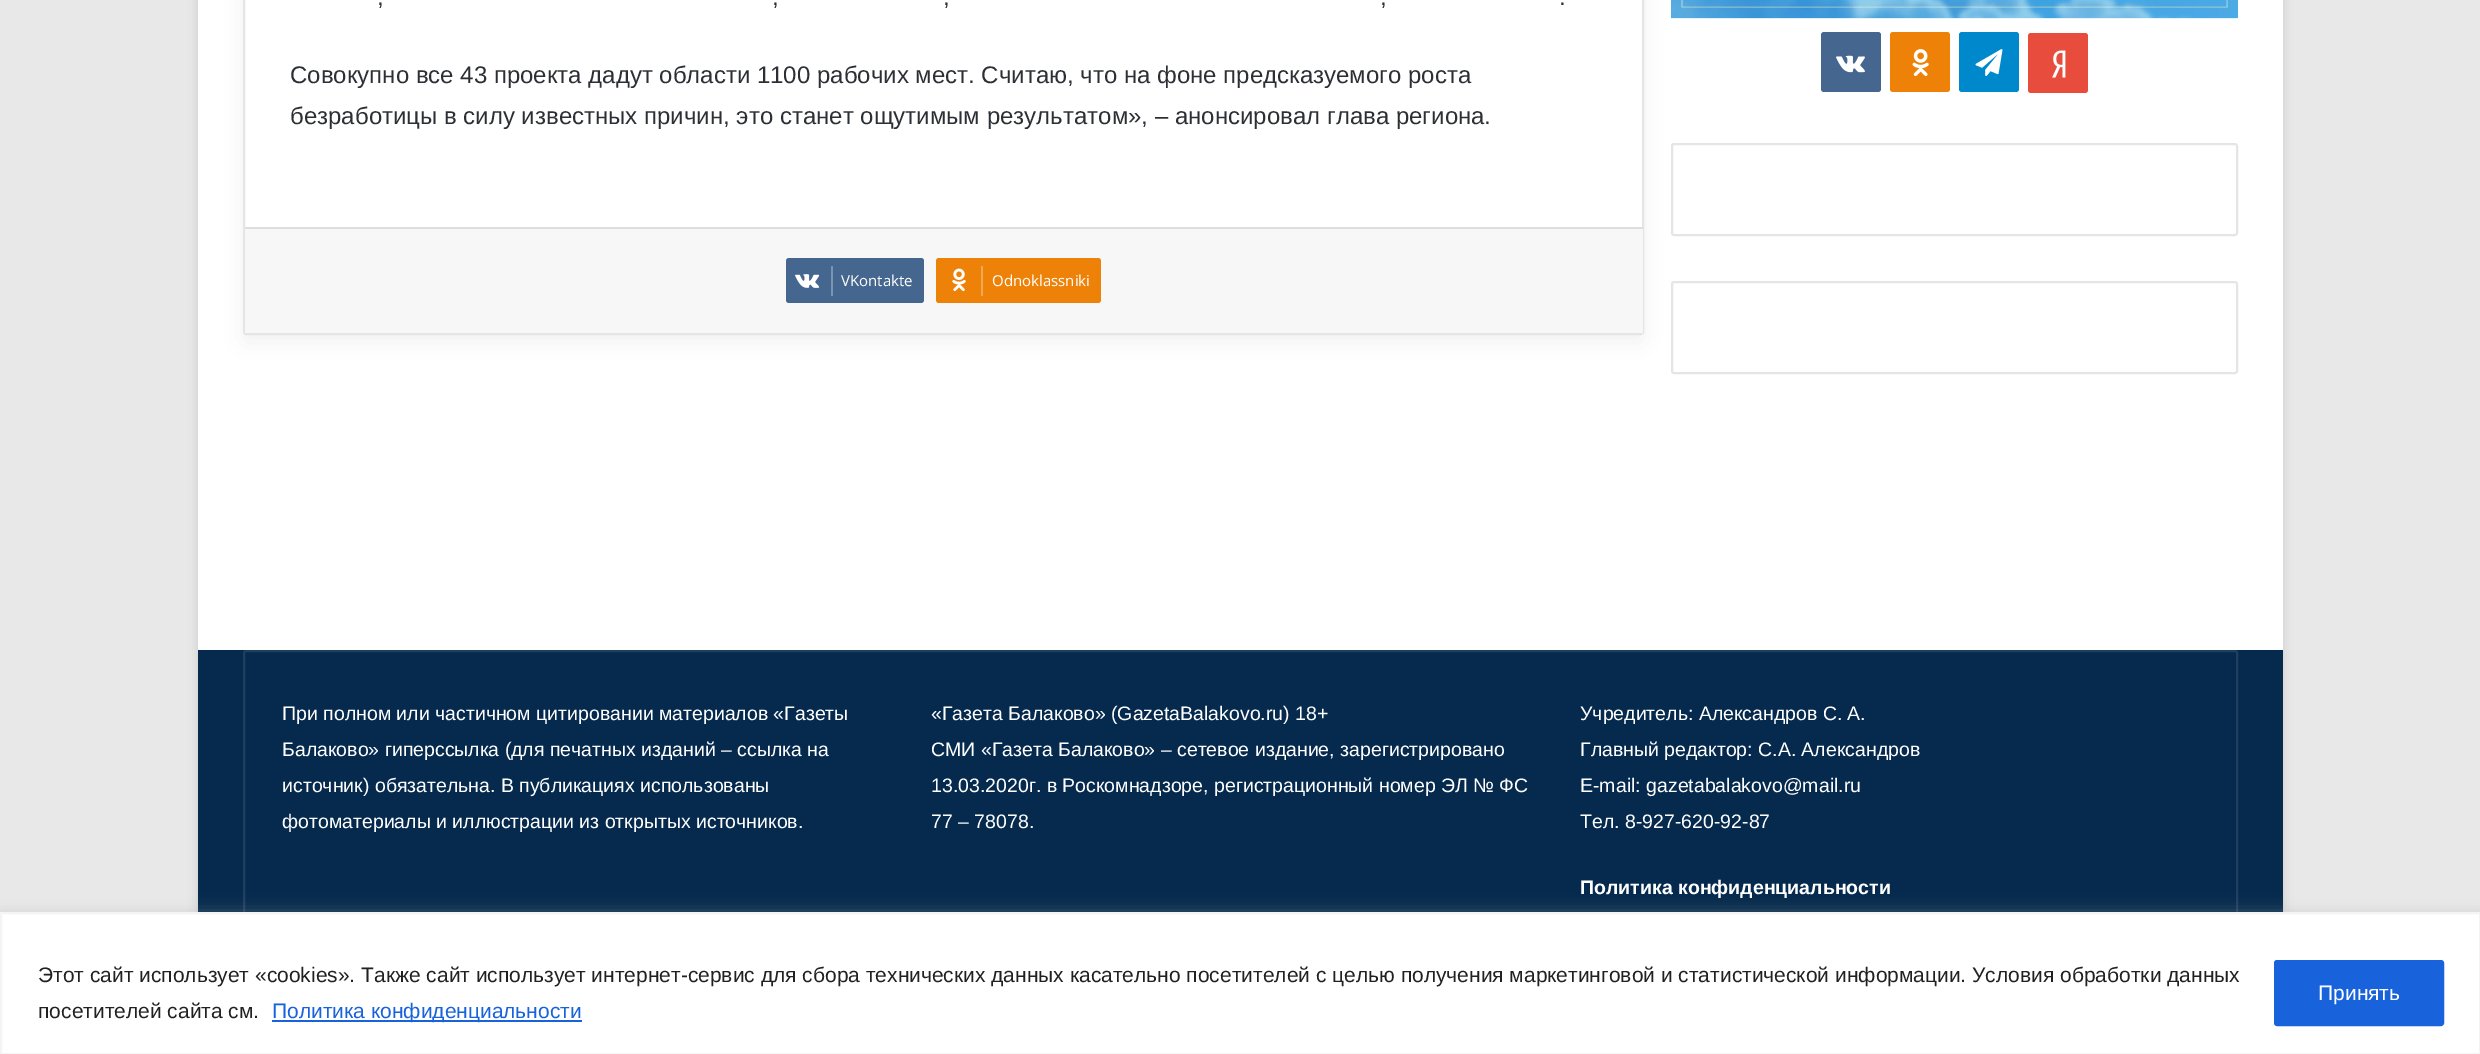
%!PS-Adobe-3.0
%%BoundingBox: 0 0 2480 1054
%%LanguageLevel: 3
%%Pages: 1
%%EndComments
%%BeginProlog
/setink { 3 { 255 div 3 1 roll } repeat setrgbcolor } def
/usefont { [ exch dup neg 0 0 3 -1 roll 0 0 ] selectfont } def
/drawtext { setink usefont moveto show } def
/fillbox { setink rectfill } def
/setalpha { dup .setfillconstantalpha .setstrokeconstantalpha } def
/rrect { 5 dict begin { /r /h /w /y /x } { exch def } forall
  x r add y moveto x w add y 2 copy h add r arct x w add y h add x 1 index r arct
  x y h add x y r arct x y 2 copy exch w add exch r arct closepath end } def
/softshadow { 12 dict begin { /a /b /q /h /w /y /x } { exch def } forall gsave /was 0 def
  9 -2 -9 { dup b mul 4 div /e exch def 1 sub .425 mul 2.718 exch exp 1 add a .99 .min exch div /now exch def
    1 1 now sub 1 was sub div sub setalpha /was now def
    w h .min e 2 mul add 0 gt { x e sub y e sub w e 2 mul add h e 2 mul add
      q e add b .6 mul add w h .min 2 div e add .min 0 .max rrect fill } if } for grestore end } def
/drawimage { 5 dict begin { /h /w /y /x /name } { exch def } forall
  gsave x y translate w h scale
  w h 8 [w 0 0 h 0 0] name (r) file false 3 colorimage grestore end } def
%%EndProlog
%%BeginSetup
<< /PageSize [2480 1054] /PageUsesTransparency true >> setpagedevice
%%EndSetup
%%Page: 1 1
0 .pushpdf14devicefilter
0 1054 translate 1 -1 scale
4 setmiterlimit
0 0 2480 1054 232 232 232 fillbox
171 171 171 setink
198 -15 2085 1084 0 5 0.5 softshadow
198 0 2085 650 255 255 255 fillbox
0 0 0 setink
243 -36 1401 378 3 11 0.05 softshadow
255 255 255 setink
244 -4 1399 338 2 rrect gsave fill grestore
229 229 229 setink
2 setlinewidth
stroke
(,) 377 5 /LiberationSans-Regular 24 44 47 52 drawtext
(,) 772 5 /LiberationSans-Regular 24 44 47 52 drawtext
(,) 943 5 /LiberationSans-Regular 24 44 47 52 drawtext
(,) 1380 5 /LiberationSans-Regular 24 44 47 52 drawtext
(.) 1559 5 /LiberationSans-Regular 24 44 47 52 drawtext
(Совокупно все 43 проекта дадут области 1100 рабочих мест. Считаю, что на фоне предсказуемого роста) 290 83 /LiberationSans-Regular 24 44 47 52 drawtext
(безработицы в силу известных причин, это станет ощутимым результатом», – анонсировал глава региона.) 290 124 /LiberationSans-Regular 24 44 47 52 drawtext
245 229 1398 104 247 247 247 fillbox
245 227 1398 2 222 222 222 fillbox
69 102 142 setink
786 258 138 45 3 rrect fill
(assets/img1.rgb) 795 274 25 14 drawimage
831 266 2 30 125 148 176 fillbox
(VKontakte) 841 286 /OpenSans-Regular 15 255 255 255 drawtext
238 130 8 setink
936 258 165 45 3 rrect fill
(assets/img2.rgb) 952 268 14 24 drawimage
981 266 2 30 243 168 82 fillbox
(Odnoklassniki) 992 286 /OpenSans-Regular 15 255 255 255 drawtext
(assets/img3.rgb) 1671 0 567 19 drawimage
69 102 142 setink
1821 32 60 60 3 rrect fill
(assets/img4.rgb) 1836 55 29 18 drawimage
238 130 8 setink
1890 32 60 60 3 rrect fill
(assets/img5.rgb) 1912 49 17 28 drawimage
0 136 204 setink
1959 32 60 60 3 rrect fill
(assets/img6.rgb) 1975 49 28 27 drawimage
231 76 60 setink
2028 33 60 60 3 rrect fill
(assets/img7.rgb) 2052 50 14 28 drawimage
229 229 229 setink
1672 144 565 91 2 rrect stroke
1672 282 565 91 2 rrect stroke
198 650 2085 262 6 42 77 fillbox
31 63 95 setink
244 651 1993 301 2 rrect stroke
(При полном или частичном цитировании материалов «Газеты) 282 720 /LiberationSans-Regular 19.5 255 255 255 drawtext
(Балаково» гиперссылка \(для печатных изданий – ссылка на) 282 756 /LiberationSans-Regular 19.5 255 255 255 drawtext
(источник\) обязательна. В публикациях использованы) 282 792 /LiberationSans-Regular 19.5 255 255 255 drawtext
(фотоматериалы и иллюстрации из открытых источников.) 282 828 /LiberationSans-Regular 19.5 255 255 255 drawtext
(«Газета Балаково» \(GazetaBalakovo.ru\) 18+) 931 720 /LiberationSans-Regular 19.5 255 255 255 drawtext
(СМИ «Газета Балаково» – сетевое издание, зарегистрировано) 931 756 /LiberationSans-Regular 19.5 255 255 255 drawtext
(13.03.2020г. в Роскомнадзоре, регистрационный номер ЭЛ № ФС) 931 792 /LiberationSans-Regular 19.5 255 255 255 drawtext
(77 – 78078.) 931 828 /LiberationSans-Regular 19.5 255 255 255 drawtext
(Учредитель: Александров С. А.) 1580 720 /LiberationSans-Regular 19.5 255 255 255 drawtext
(Главный редактор: С.А. Александров) 1580 756 /LiberationSans-Regular 19.5 255 255 255 drawtext
(E-mail: gazetabalakovo@mail.ru) 1580 792 /LiberationSans-Regular 19.5 255 255 255 drawtext
(Тел. 8-927-620-92-87) 1580 828 /LiberationSans-Regular 19.5 255 255 255 drawtext
(Политика конфиденциальности) 1580 894 /LiberationSans-Bold 19.5 255 255 255 drawtext
172 171 171 setink
0 911 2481 142 0 7.5 0.3 softshadow
255 255 255 setink
1 913 moveto 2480 913 lineto 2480 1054 lineto 1 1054 lineto closepath gsave fill grestore
244 244 244 setink
stroke
(Этот сайт использует «cookies». Также сайт использует интернет-сервис для сбора технических данных касательно посетителей с целью получения маркетинговой и статистической информации. Условия обработки данных) 38 982 /LiberationSans-Regular 21 33 33 33 drawtext
(посетителей сайта см.) 38 1018 /LiberationSans-Regular 21 33 33 33 drawtext
272 1020 310 2 24 99 220 fillbox
(Политика конфиденциальности) 272 1018 /LiberationSans-Regular 21 24 99 220 drawtext
2275.5 961.5 167 63 1.5 rrect gsave fill grestore
3 setlinewidth
stroke
(Принять) 2318 1000 /LiberationSans-Regular 21 255 255 255 drawtext
.poppdf14devicefilter showpage
%%EOF
